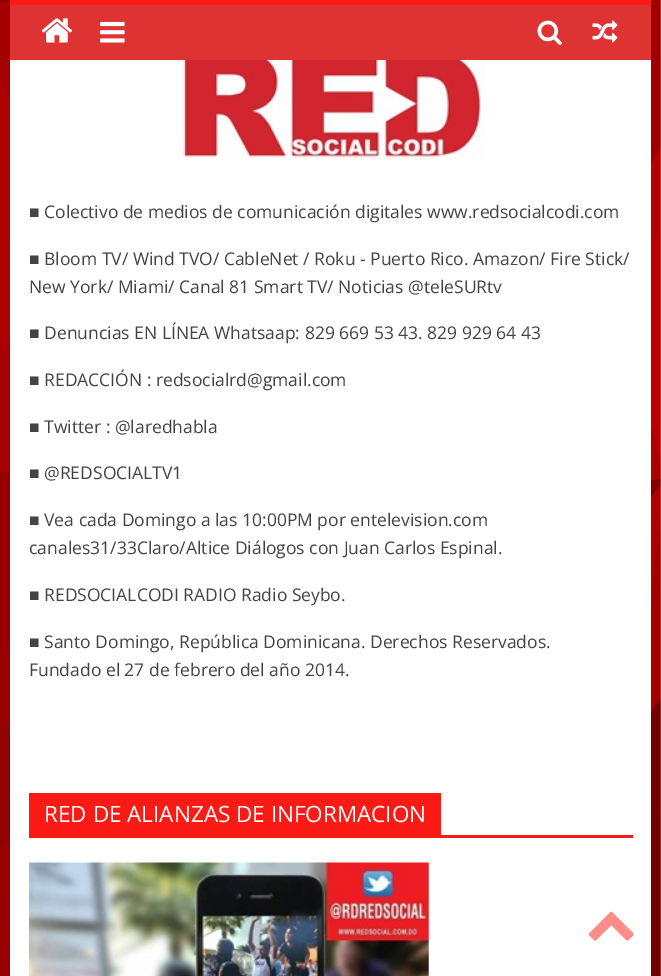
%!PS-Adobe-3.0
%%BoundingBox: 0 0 661 976
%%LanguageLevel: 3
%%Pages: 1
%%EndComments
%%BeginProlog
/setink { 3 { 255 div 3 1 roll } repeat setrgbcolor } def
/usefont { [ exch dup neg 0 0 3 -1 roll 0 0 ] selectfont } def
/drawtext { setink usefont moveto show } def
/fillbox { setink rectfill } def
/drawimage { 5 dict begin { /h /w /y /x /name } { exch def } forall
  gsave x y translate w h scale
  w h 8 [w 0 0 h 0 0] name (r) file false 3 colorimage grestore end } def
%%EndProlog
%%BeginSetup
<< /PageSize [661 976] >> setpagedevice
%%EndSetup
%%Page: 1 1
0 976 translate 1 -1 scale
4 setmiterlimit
0 0 661 976 255 255 255 fillbox
(assets/img1.rgb) 0 0 661 976 drawimage
10 5 641 55 221 51 51 fillbox
10 0 641 5 252 27 20 fillbox
(assets/img2.rgb) 41 18 32 25 drawimage
(assets/img3.rgb) 100 21 25 22 drawimage
(assets/img4.rgb) 537 20 25 25 drawimage
(assets/img5.rgb) 592 20 26 23 drawimage
10 60 641 916 255 255 255 fillbox
(assets/img6.rgb) 174 60 312 100 drawimage
(■) 29 218 /LiberationSerif-Regular 17.5 68 68 68 drawtext
(Colectivo de medios de comunicación digitales www.redsocialcodi.com) 44 218 /OpenSans-Regular 17.5 68 68 68 drawtext
(■) 29 265 /LiberationSerif-Regular 17.5 68 68 68 drawtext
(Bloom TV/ Wind TVO/ CableNet / Roku - Puerto Rico. Amazon/ Fire Stick/) 44 265 /OpenSans-Regular 17.5 68 68 68 drawtext
(New York/ Miami/ Canal 81 Smart TV/ Noticias @teleSURtv) 29 293 /OpenSans-Regular 17.5 68 68 68 drawtext
(■) 29 339 /LiberationSerif-Regular 17.5 68 68 68 drawtext
(Denuncias EN LÍNEA Whatsaap: 829 669 53 43. 829 929 64 43) 44 339 /OpenSans-Regular 17.5 68 68 68 drawtext
(■) 29 386 /LiberationSerif-Regular 17.5 68 68 68 drawtext
(REDACCIÓN : redsocialrd@gmail.com) 44 386 /OpenSans-Regular 17.5 68 68 68 drawtext
(■) 29 433 /LiberationSerif-Regular 17.5 68 68 68 drawtext
(Twitter : @laredhabla) 44 433 /OpenSans-Regular 17.5 68 68 68 drawtext
(■) 29 479 /LiberationSerif-Regular 17.5 68 68 68 drawtext
(@REDSOCIALTV1) 44 479 /OpenSans-Regular 17.5 68 68 68 drawtext
(■) 29 526 /LiberationSerif-Regular 17.5 68 68 68 drawtext
(Vea cada Domingo a las 10:00PM por entelevision.com) 44 526 /OpenSans-Regular 17.5 68 68 68 drawtext
(canales31/33Claro/Altice Diálogos con Juan Carlos Espinal.) 29 554 /OpenSans-Regular 17.5 68 68 68 drawtext
(■) 29 601 /LiberationSerif-Regular 17.5 68 68 68 drawtext
(REDSOCIALCODI RADIO Radio Seybo.) 44 601 /OpenSans-Regular 17.5 68 68 68 drawtext
(■) 29 648 /LiberationSerif-Regular 17.5 68 68 68 drawtext
(Santo Domingo, República Dominicana. Derechos Reservados.) 44 648 /OpenSans-Regular 17.5 68 68 68 drawtext
(Fundado el 27 de febrero del año 2014.) 29 676 /OpenSans-Regular 17.5 68 68 68 drawtext
29 835 604 3 252 27 20 fillbox
29 793 412 42 252 27 20 fillbox
(RED DE ALIANZAS DE INFORMACION) 44 822 /OpenSans-Regular 22.5 255 255 255 drawtext
(assets/img7.rgb) 29 862 400 114 drawimage
(assets/img8.rgb) 588 911 46 30 drawimage
showpage
%%EOF
